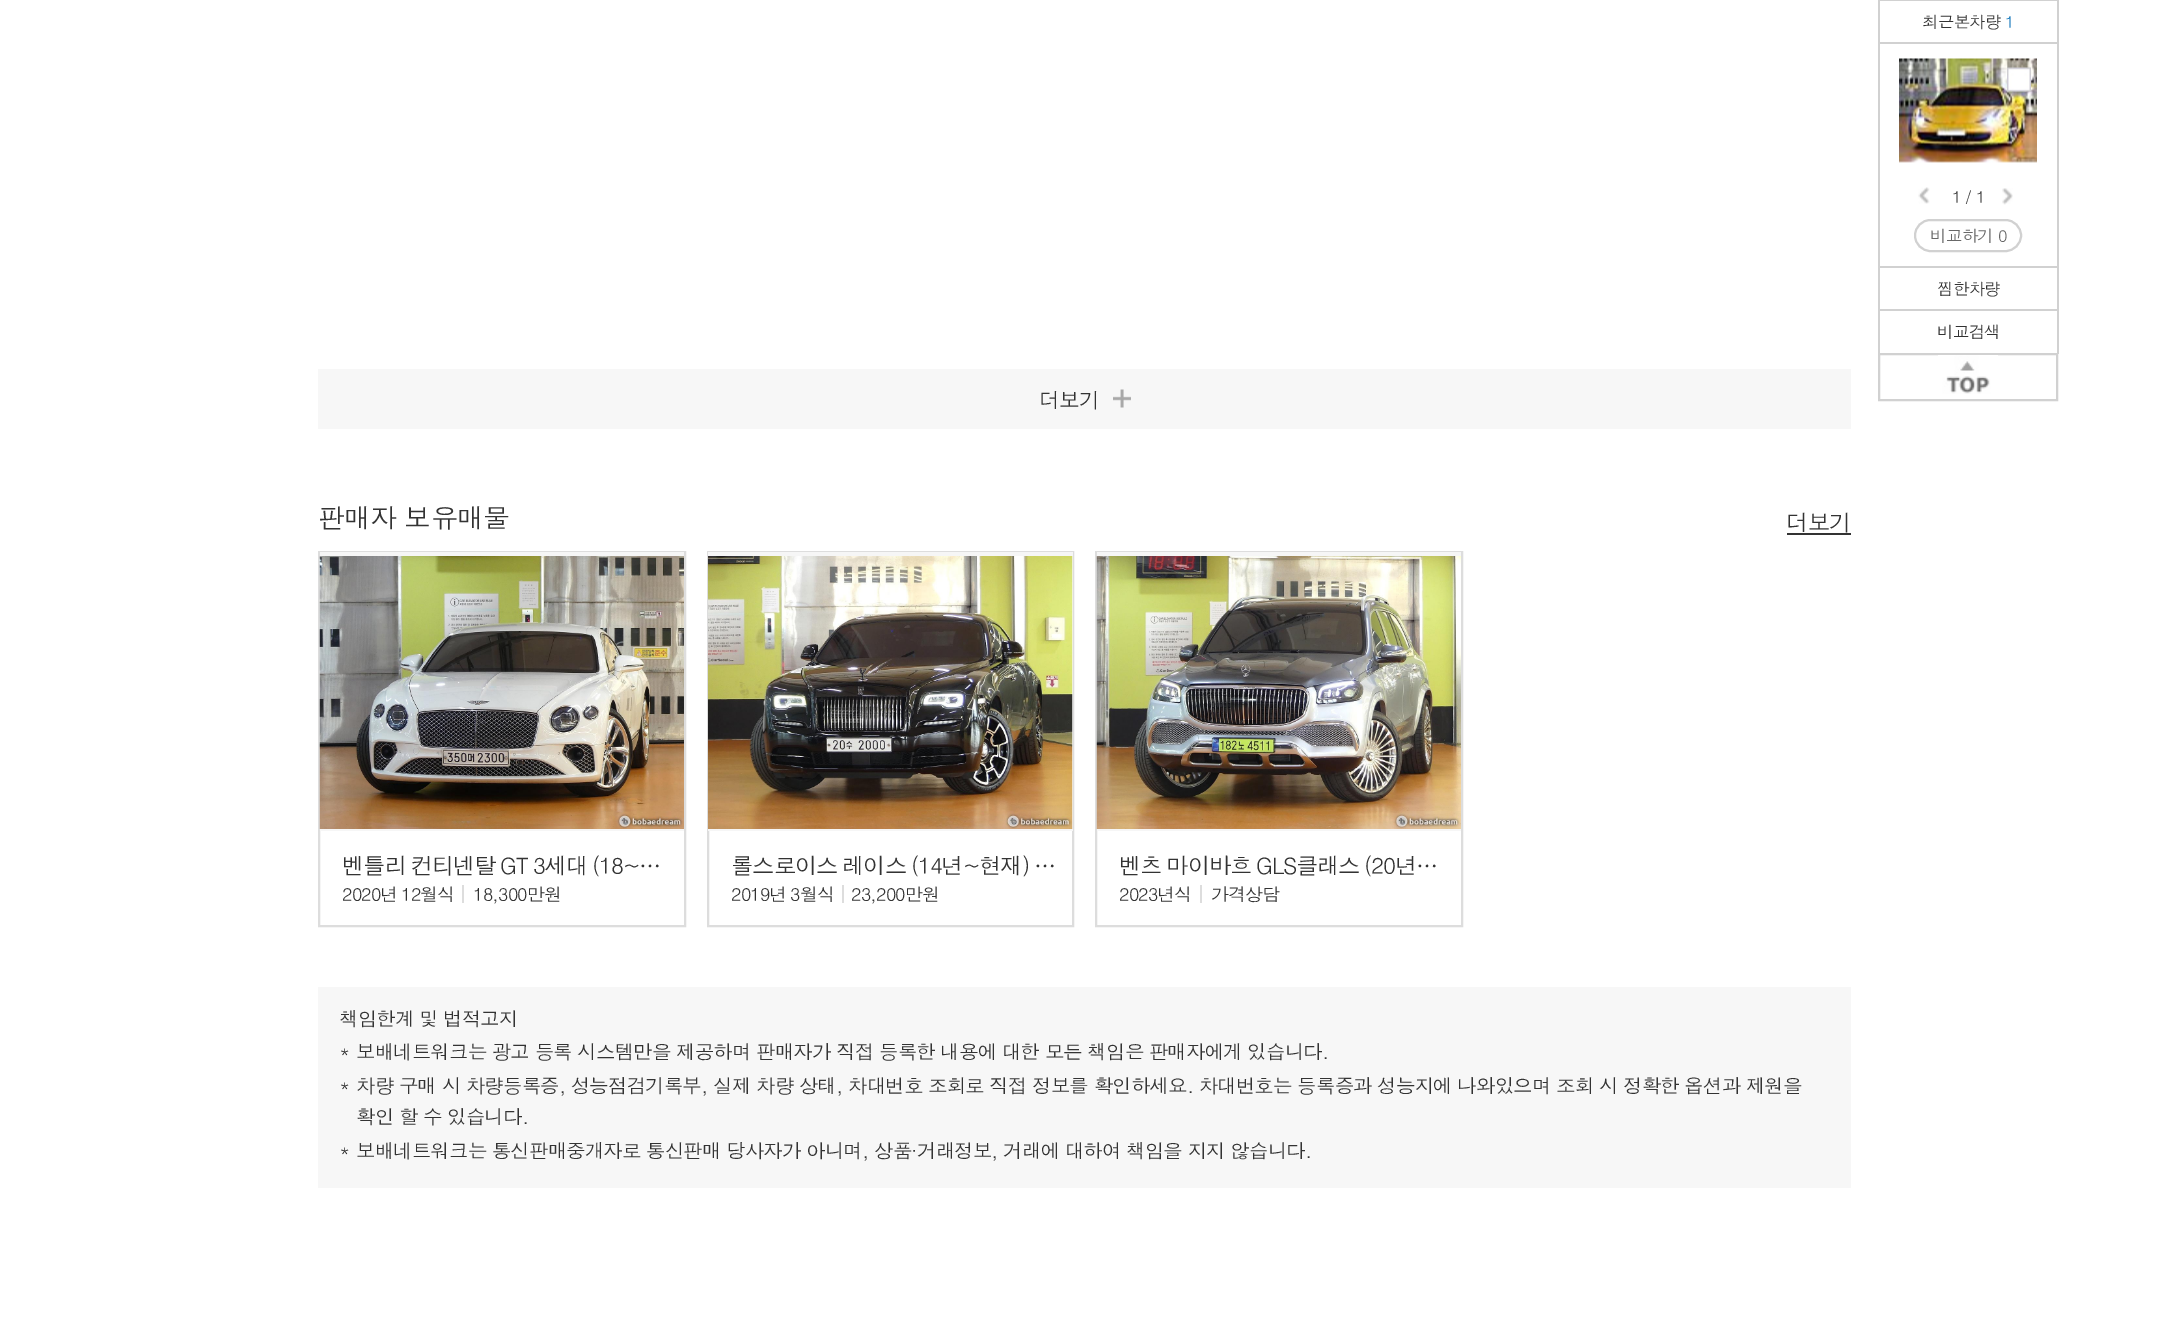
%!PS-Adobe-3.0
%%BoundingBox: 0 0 2168 1324
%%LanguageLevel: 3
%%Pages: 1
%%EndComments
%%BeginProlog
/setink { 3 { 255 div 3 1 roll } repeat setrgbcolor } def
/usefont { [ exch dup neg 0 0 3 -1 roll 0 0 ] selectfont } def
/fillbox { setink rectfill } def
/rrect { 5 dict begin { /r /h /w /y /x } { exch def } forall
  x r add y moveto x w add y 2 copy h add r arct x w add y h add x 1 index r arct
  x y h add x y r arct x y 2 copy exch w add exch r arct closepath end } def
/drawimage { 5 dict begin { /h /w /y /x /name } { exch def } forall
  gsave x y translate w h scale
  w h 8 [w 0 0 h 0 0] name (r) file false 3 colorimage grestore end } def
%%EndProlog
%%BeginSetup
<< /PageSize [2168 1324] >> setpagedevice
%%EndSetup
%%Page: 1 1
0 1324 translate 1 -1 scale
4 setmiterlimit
0 0 2168 1324 255 255 255 fillbox
209 209 209 setink
2 setlinewidth
1879 354 178 46 rectstroke
2057 0 2 354 209 209 209 fillbox
1878 0 2 354 209 209 209 fillbox
1880 0 177 1 209 209 209 fillbox
1880 42 177 2 209 209 209 fillbox
/Dotum-Regular 16.5 usefont
51 51 51 setink
1922 28 moveto -0.75 0 (최근본차량) ashow
5 111 183 setink
2005 28 moveto -0.75 0 (1) ashow
(assets/img1.rgb) 1899 58 138 105 drawimage
(assets/img2.rgb) 2007 67 24 25 drawimage
(assets/img3.rgb) 1918 187 12 17 drawimage
51 51 51 setink
1952 203 moveto -0.9 0 (1 / 1) ashow
(assets/img4.rgb) 2002 188 11 17 drawimage
209 209 209 setink
1915 220 106 31 15.5 rrect stroke
104 104 104 setink
1930 242 moveto -0.75 0 (비교하기 0) ashow
1880 266 177 2 209 209 209 fillbox
1880 309 177 2 209 209 209 fillbox
51 51 51 setink
1937 295 moveto -0.75 0 (찜한차량) ashow
1937 338 moveto -0.75 0 (비교검색) ashow
(assets/img5.rgb) 1938 355 60 39 drawimage
318 369 1533 60 247 247 247 fillbox
/Dotum-Regular 21 usefont
51 51 51 setink
1039 408 moveto -0.9 0 (더보기) ashow
(assets/img6.rgb) 1113 389 18 19 drawimage
/Dotum-Regular 27 usefont
318 528 moveto -0.9 0 (판매자 보유매물) ashow
/Dotum-Regular 22.5 usefont
1786 531 moveto -0.9 0 (더보기) ashow
1787 533 64 2 51 51 51 fillbox
221 221 221 setink
319 552 366 374 rectstroke
320 552 364 279 246 246 246 fillbox
(assets/img7.rgb) 319 556 365 273 drawimage
51 51 51 setink
342 874 moveto -1.5 0 32 -1.25 0 (벤틀리 컨티넨탈 GT 3세대 \(18~…) awidthshow
462 885 2 18 221 221 221 fillbox
/Dotum-Regular 18 usefont
51 51 51 setink
342 901 moveto -0.9 0 (2020년) ashow
401 901 moveto -0.9 0 (12월식) ashow
473 901 moveto -0.9 0 (18,300만원) ashow
221 221 221 setink
708 552 365 374 rectstroke
708 552 365 279 246 246 246 fillbox
(assets/img8.rgb) 708 556 365 273 drawimage
/Dotum-Regular 22.5 usefont
51 51 51 setink
731 874 moveto -1.5 0 32 -1.25 0 (롤스로이스 레이스 \(14년~현재\) …) awidthshow
842 885 2 18 221 221 221 fillbox
/Dotum-Regular 18 usefont
51 51 51 setink
731 901 moveto -0.9 0 (2019년) ashow
790 901 moveto -0.9 0 (3월식) ashow
851 901 moveto -0.9 0 (23,200만원) ashow
221 221 221 setink
1096 552 366 374 rectstroke
1097 552 364 279 246 246 246 fillbox
(assets/img9.rgb) 1096 556 365 273 drawimage
/Dotum-Regular 22.5 usefont
51 51 51 setink
1119 874 moveto -1.5 0 32 -1.25 0 (벤츠 마이바흐 GLS클래스 \(20년…) awidthshow
1200 885 2 18 221 221 221 fillbox
/Dotum-Regular 18 usefont
51 51 51 setink
1119 901 moveto -0.9 0 (2023년식) ashow
1211 901 moveto -0.9 0 (가격상담) ashow
318 987 1533 201 247 247 247 fillbox
/Dotum-Regular 19.5 usefont
51 51 51 setink
339 1026 moveto -0.9 0 (책임한계 및 법적고지) ashow
339 1059 moveto -0.9 0 (*) ashow
356 1059 moveto -0.9 0 (보배네트워크는 광고 등록 시스템만을 제공하며 판매자가 직접 등록한 내용에 대한 모든 책임은 판매자에게 있습니다.) ashow
339 1093 moveto -0.9 0 (*) ashow
356 1093 moveto -0.9 0 (차량 구매 시 차량등록증, 성능점검기록부, 실제 차량 상태, 차대번호 조회로 직접 정보를 확인하세요. 차대번호는 등록증과 성능지에 나와있으며 조회 시 정확한 옵션과 제원을) ashow
356 1124 moveto -0.9 0 (확인 할 수 있습니다.) ashow
339 1158 moveto -0.9 0 (*) ashow
356 1158 moveto -0.9 0 (보배네트워크는 통신판매중개자로 통신판매 당사자가 아니며, 상품·거래정보, 거래에 대하여 책임을 지지 않습니다.) ashow
showpage
%%EOF
